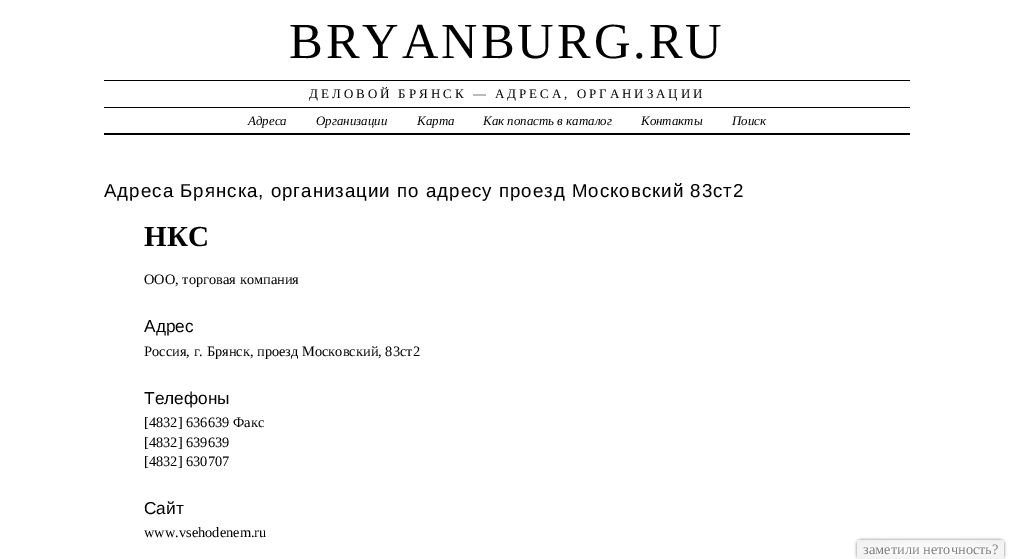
%!PS-Adobe-3.0
%%BoundingBox: 0 0 1014 559
%%LanguageLevel: 3
%%Pages: 1
%%EndComments
%%BeginProlog
/setink { 3 { 255 div 3 1 roll } repeat setrgbcolor } def
/usefont { [ exch dup neg 0 0 3 -1 roll 0 0 ] selectfont } def
/drawtext { setink usefont moveto show } def
/fillbox { setink rectfill } def
/setalpha { dup .setfillconstantalpha .setstrokeconstantalpha } def
/rrect { 5 dict begin { /r /h /w /y /x } { exch def } forall
  x r add y moveto x w add y 2 copy h add r arct x w add y h add x 1 index r arct
  x y h add x y r arct x y 2 copy exch w add exch r arct closepath end } def
/softshadow { 12 dict begin { /a /b /q /h /w /y /x } { exch def } forall gsave /was 0 def
  9 -2 -9 { dup b mul 4 div /e exch def 1 sub .425 mul 2.718 exch exp 1 add a .99 .min exch div /now exch def
    1 1 now sub 1 was sub div sub setalpha /was now def
    w h .min e 2 mul add 0 gt { x e sub y e sub w e 2 mul add h e 2 mul add
      q e add b .6 mul add w h .min 2 div e add .min 0 .max rrect fill } if } for grestore end } def
%%EndProlog
%%BeginSetup
<< /PageSize [1014 559] /PageUsesTransparency true >> setpagedevice
%%EndSetup
%%Page: 1 1
0 .pushpdf14devicefilter
0 559 translate 1 -1 scale
4 setmiterlimit
0 0 1014 559 255 255 255 fillbox
/LiberationSerif-Regular 50.5 usefont
0 0 0 setink
289 58 moveto 3 0 (BRYANBURG.RU) ashow
104 80 806 1 0 0 0 fillbox
/LiberationSerif-Regular 12.95 usefont
309 98 moveto 3 0 (ДЕЛОВОЙ БРЯНСК — АДРЕСА, ОРГАНИЗАЦИИ) ashow
104 107 806 1 0 0 0 fillbox
104 133 806 2 0 0 0 fillbox
(Адреса) 248 125 /LiberationSerif-Italic 12.95 0 0 0 drawtext
(Организации) 316 125 /LiberationSerif-Italic 12.95 0 0 0 drawtext
(Карта) 417 125 /LiberationSerif-Italic 12.95 0 0 0 drawtext
(Как попасть в каталог) 483 125 /LiberationSerif-Italic 12.95 0 0 0 drawtext
(Контакты) 641 125 /LiberationSerif-Italic 12.95 0 0 0 drawtext
(Поиск) 732 125 /LiberationSerif-Italic 12.95 0 0 0 drawtext
/LiberationSans-Regular 18.7 usefont
104 197 moveto 1 0 (Адреса Брянска, организации по адресу проезд Московский 83ст2) ashow
(НКС) 144 246 /LiberationSerif-Bold 29 0 0 0 drawtext
(ООО, торговая компания) 144 284 /LiberationSerif-Regular 14.4 0 0 0 drawtext
(Адрес) 144 332 /LiberationSans-Regular 17.25 0 0 0 drawtext
(Россия, г. Брянск, проезд Московский, 83ст2) 144 356 /LiberationSerif-Regular 14.4 0 0 0 drawtext
(Телефоны) 144 404 /LiberationSans-Regular 17.25 0 0 0 drawtext
([4832] 636639 Факс) 144 427 /LiberationSerif-Regular 14.4 0 0 0 drawtext
([4832] 639639) 144 447 /LiberationSerif-Regular 14.4 0 0 0 drawtext
([4832] 630707) 144 466 /LiberationSerif-Regular 14.4 0 0 0 drawtext
(Сайт) 144 514 /LiberationSans-Regular 17.25 0 0 0 drawtext
(www.vsehodenem.ru) 144 537 /LiberationSerif-Regular 14.4 0 0 0 drawtext
128 128 128 setink
857 540 147 19 4 1.5 1 softshadow
gsave 861 540 moveto 1000 540 lineto 1002 540 1004 542 1004 544 curveto 1004 559 lineto 857 559 lineto 857 544 lineto 857 542 859 540 861 540 curveto closepath clip newpath 931 550 translate 104 13 scale
<< /ShadingType 3 /ColorSpace /DeviceRGB /Coords [0 0 0 0 0 1] /Extend [true true] /Function << /FunctionType 2 /Domain [0 1] /C0 [1 1 1] /C1 [0.941 0.941 0.941] /N 1 >> >> shfill grestore
(заметили неточность?) 863 554 /LiberationSerif-Regular 14.4 128 128 128 drawtext
.poppdf14devicefilter showpage
%%EOF
